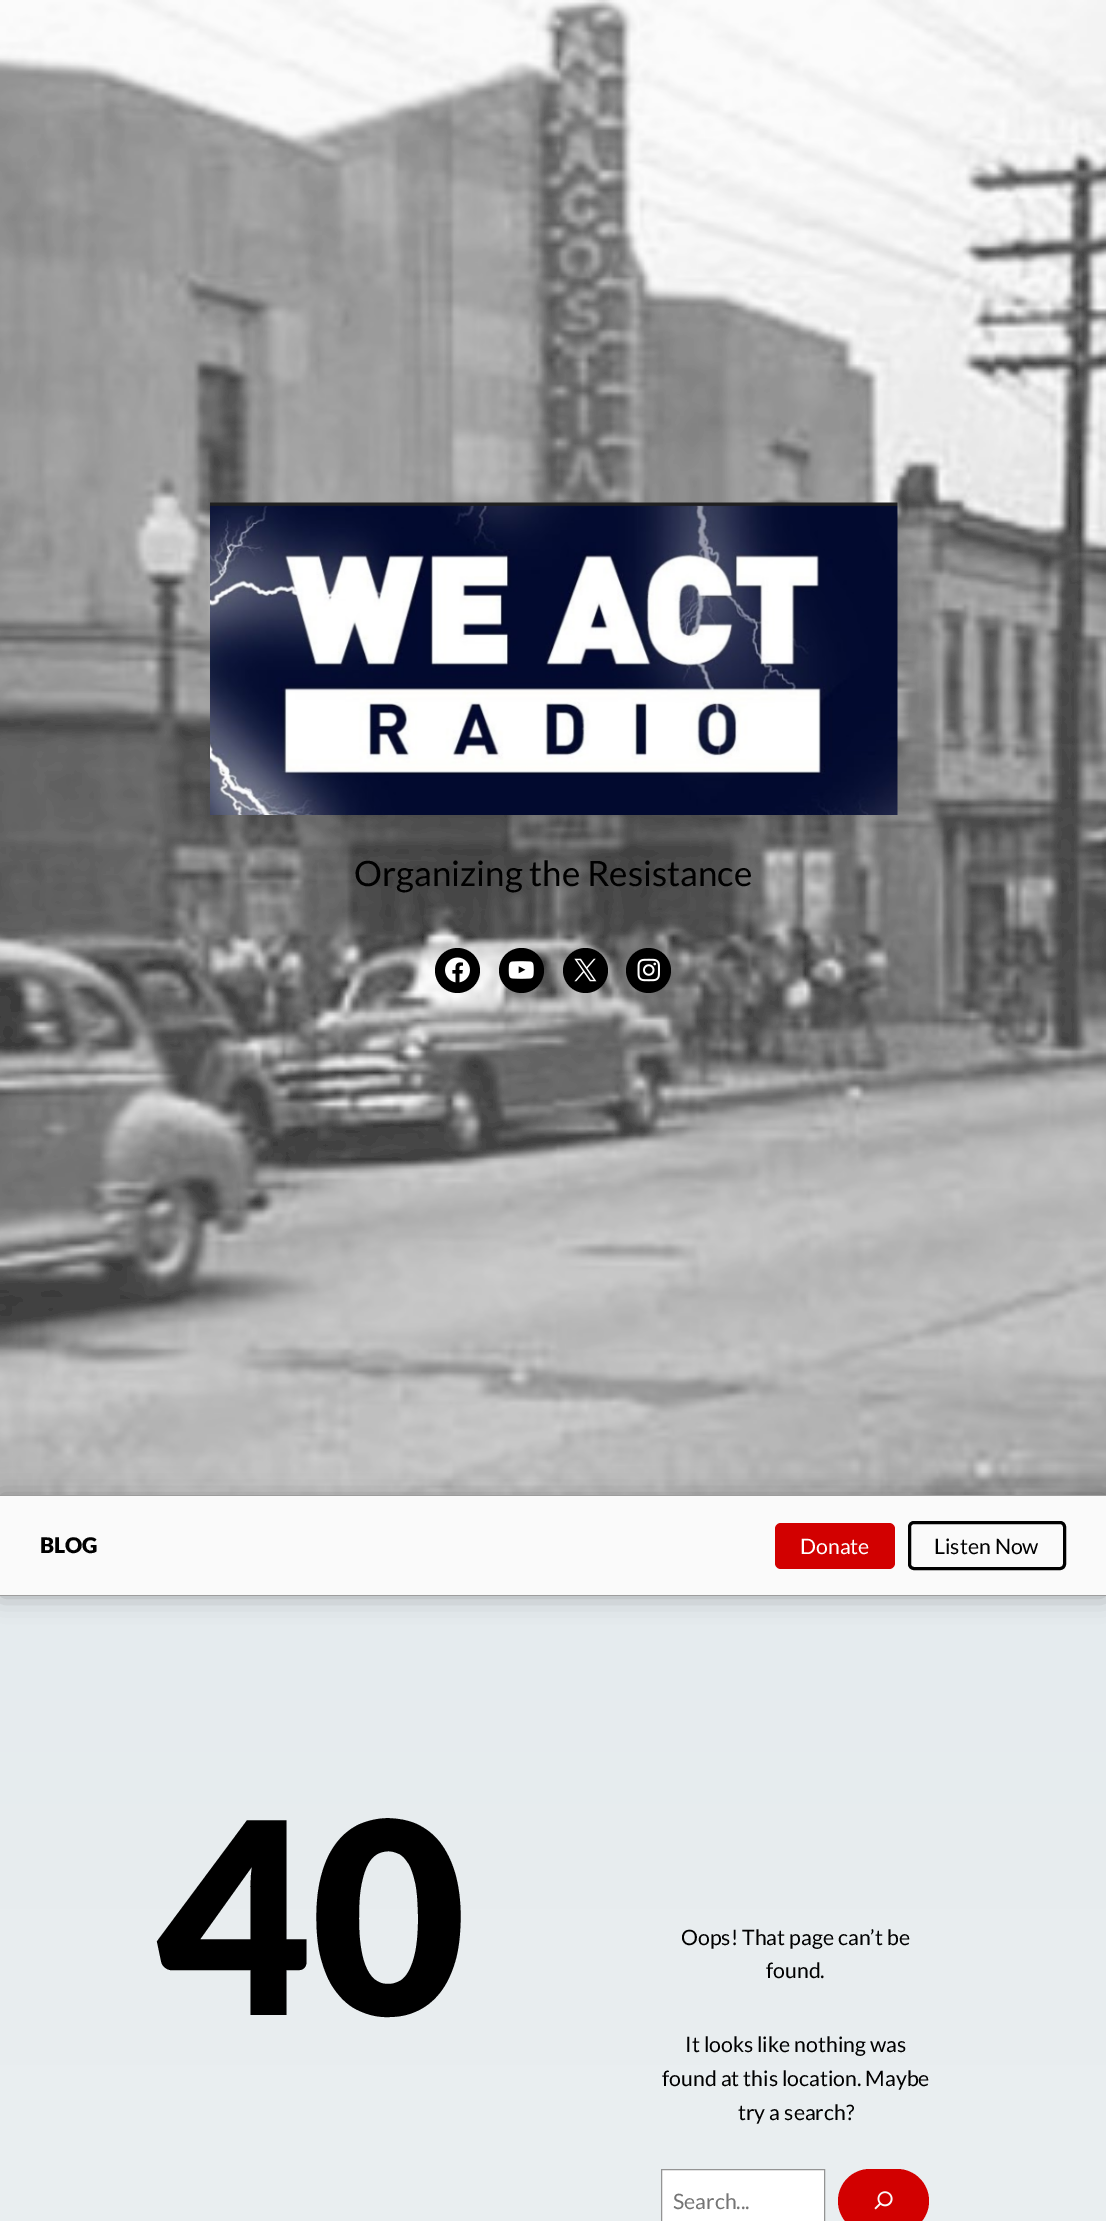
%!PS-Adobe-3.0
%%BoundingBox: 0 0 1106 2221
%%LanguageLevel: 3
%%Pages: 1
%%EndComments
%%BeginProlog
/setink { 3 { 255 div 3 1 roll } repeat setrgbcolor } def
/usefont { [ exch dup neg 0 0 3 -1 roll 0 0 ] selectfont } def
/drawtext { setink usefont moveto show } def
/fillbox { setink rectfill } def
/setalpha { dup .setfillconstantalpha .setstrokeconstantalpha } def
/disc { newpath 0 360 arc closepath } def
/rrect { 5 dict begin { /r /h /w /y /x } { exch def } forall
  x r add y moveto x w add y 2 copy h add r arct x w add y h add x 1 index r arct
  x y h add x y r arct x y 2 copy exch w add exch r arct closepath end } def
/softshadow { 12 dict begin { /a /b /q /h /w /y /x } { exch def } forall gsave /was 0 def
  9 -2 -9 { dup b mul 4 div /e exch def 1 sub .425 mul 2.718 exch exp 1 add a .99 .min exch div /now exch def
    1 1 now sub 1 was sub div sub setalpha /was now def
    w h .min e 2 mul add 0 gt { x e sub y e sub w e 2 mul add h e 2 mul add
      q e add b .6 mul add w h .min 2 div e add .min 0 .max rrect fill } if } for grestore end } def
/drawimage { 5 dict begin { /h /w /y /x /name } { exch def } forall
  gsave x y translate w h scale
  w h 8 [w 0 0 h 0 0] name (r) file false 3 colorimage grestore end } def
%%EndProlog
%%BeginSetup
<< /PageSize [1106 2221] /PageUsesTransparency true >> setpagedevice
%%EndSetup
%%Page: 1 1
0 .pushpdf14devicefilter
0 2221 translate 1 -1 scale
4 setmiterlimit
0 0 1106 2221 255 255 255 fillbox
gsave 0 1596 moveto 1106 1596 lineto 1106 2221 lineto 0 2221 lineto closepath clip newpath
<< /ShadingType 2 /ColorSpace /DeviceRGB /Coords [553 0 553 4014] /Extend [true true] /Function << /FunctionType 2 /Domain [0 1] /C0 [0.843 0.886 0.902] /C1 [0.98 0.98 0.98] /N 1 >> >> shfill grestore
(assets/img1.rgb) 0 0 1106 1495 drawimage
0 0 0 setink
0 1495 1106 101 0 12.5 0.3 softshadow
0.2 setalpha
0 0 1106 1495 237 237 237 fillbox
1 setalpha
(assets/img2.rgb) 210 502 688 313 drawimage
(Organizing the Resistance) 354 886 /Lato-Regular 35 0 0 0 drawtext
457.5 970.5 22.5 disc fill
(assets/img3.rgb) 445 957 25 26 drawimage
521.5 970.5 22.5 disc fill
(assets/img4.rgb) 508 961 26 18 drawimage
585.5 970.5 22.5 disc fill
(assets/img5.rgb) 574 958 23 24 drawimage
648.5 970.5 22.5 disc fill
(assets/img6.rgb) 637 958 23 24 drawimage
0 1496 1106 99 250 250 250 fillbox
0 1495 1106 1 157 157 157 fillbox
0 1595 1106 1 157 157 157 fillbox
(BLOG) 40 1553 /Lato-Black 21.5 0 0 0 drawtext
210 0 0 setink
775 1523 120 46 6 rrect fill
(Donate) 800 1554 /Lato-Regular 21.25 255 255 255 drawtext
0 0 0 setink
3 setlinewidth
909.5 1522.5 155 46 4.5 rrect stroke
(Listen Now) 934 1554 /Lato-Regular 21.25 0 0 0 drawtext
(40) 156 2015 /Lato-Black 268 0 0 0 drawtext
(Oops! That page can’t be) 681 1945 /Lato-Regular 21.25 0 0 0 drawtext
(found.) 766 1978 /Lato-Regular 21.25 0 0 0 drawtext
(It looks like nothing was) 685 2052 /Lato-Regular 21.25 0 0 0 drawtext
(found at this location. Maybe) 662 2086 /Lato-Regular 21.25 0 0 0 drawtext
(try a search?) 738 2120 /Lato-Regular 21.25 0 0 0 drawtext
255 255 255 setink
661.5 2169.5 moveto 824.5 2169.5 lineto 824.5 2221.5 lineto 661.5 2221.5 lineto closepath gsave fill grestore
148 148 148 setink
1 setlinewidth
stroke
(Search...) 673 2209 /Lato-Regular 21.25 117 117 117 drawtext
210 0 0 setink
838 2169 91 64 32 rrect fill
(assets/img7.rgb) 874 2191 19 19 drawimage
.poppdf14devicefilter showpage
%%EOF
